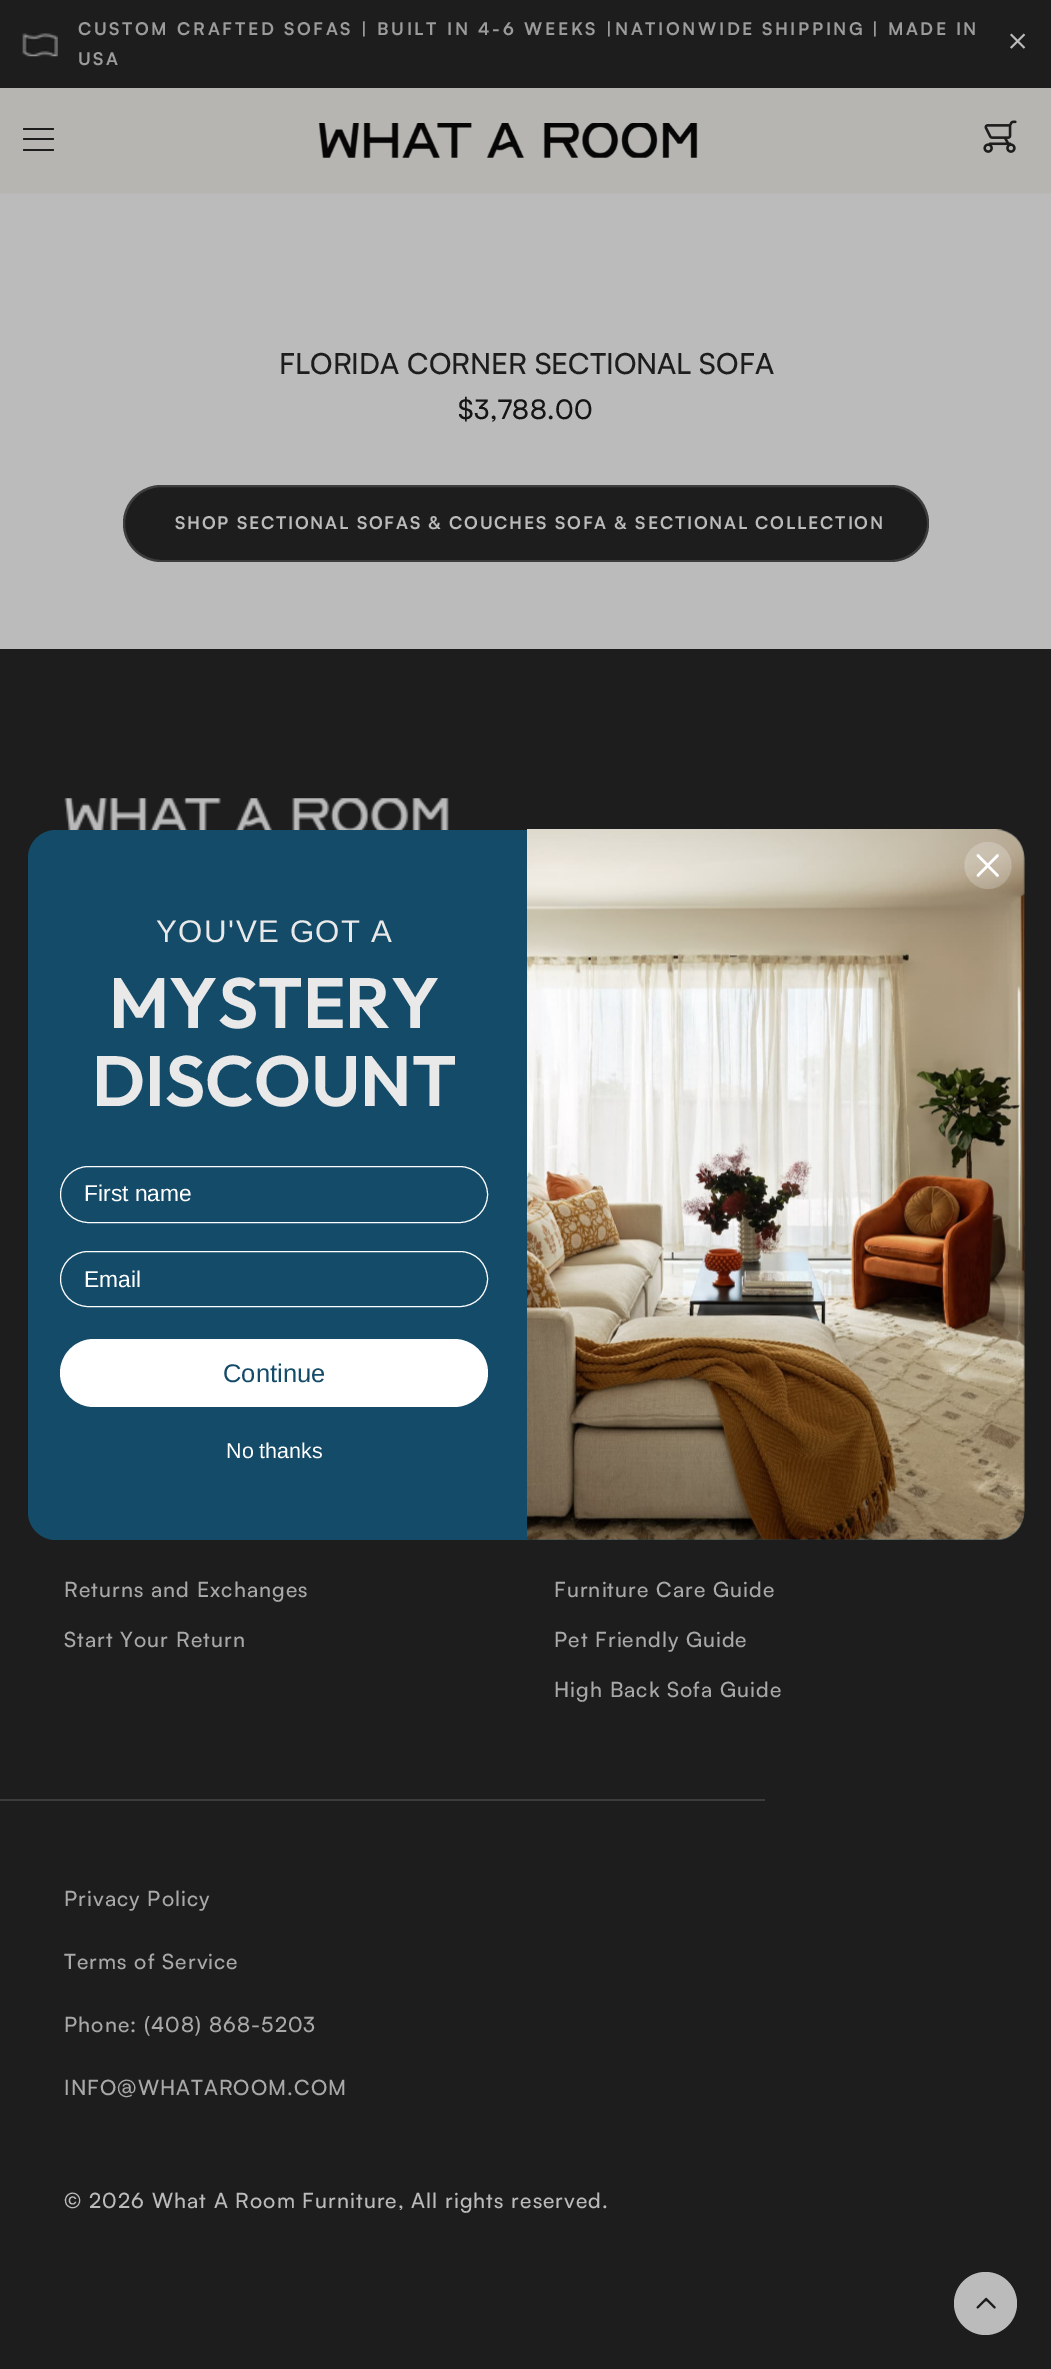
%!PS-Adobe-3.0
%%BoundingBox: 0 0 1051 2369
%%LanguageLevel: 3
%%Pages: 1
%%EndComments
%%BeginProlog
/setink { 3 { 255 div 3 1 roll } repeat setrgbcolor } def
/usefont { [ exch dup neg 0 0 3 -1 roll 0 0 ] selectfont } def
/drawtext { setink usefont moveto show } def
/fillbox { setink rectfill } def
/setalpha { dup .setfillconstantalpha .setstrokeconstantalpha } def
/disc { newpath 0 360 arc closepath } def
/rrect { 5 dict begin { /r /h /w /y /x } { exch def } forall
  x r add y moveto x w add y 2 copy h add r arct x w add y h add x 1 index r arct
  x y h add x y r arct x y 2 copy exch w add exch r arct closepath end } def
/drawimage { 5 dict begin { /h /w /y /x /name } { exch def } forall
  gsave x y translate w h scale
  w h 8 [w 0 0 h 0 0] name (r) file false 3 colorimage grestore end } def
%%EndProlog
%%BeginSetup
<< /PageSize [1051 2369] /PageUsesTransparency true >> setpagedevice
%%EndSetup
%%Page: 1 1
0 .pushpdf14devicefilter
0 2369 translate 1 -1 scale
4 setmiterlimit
0 0 1051 2369 187 187 187 fillbox
0 0 1051 88 29 29 29 fillbox
(assets/img1.rgb) 22 33 36 24 drawimage
/Satoshi-Bold 17.5 usefont
155 155 155 setink
78 35 moveto 0.5 0 32 2.6 0 (CUSTOM CRAFTED SOFAS | BUILT IN 4-6 WEEKS |) awidthshow
615 35 moveto -0.5 0 32 2.6 0 (NATIONWIDE SHIPPING | MADE IN) awidthshow
78 65 moveto 2.6 0 (USA) ashow
(assets/img2.rgb) 1010 33 16 16 drawimage
0 88 1051 105 183 181 178 fillbox
0 193 1051 1 186 185 184 fillbox
29 29 29 setink
23 128 31 2 1 rrect fill
23 138 31 2 1 rrect fill
23 149 31 2 1 rrect fill
(assets/img3.rgb) 318 123 380 35 drawimage
(assets/img4.rgb) 983 120 34 33 drawimage
(FLORIDA CORNER SECTIONAL SOFA) 279 374 /Satoshi-Medium 28.9 29 29 29 drawtext
/Satoshi-Medium 27 usefont
21 21 21 setink
458 419 moveto 0.5 0 ($3,788.00) ashow
29 29 29 setink
123 485 806 77 38.5 rrect fill
0.2 setalpha
187 187 187 setink
2 setlinewidth
124 486 804 75 37.5 rrect stroke
/Satoshi-Bold 17.5 usefont
1 setalpha
175 529 moveto 1.75 0 (SHOP SECTIONAL SOFAS & COUCHES SOFA & SECTIONAL COLLECTION) ashow
0 649 1051 1720 29 29 29 fillbox
(assets/img5.rgb) 64 798 385 32 drawimage
/Satoshi-Medium 21 usefont
168 168 168 setink
64 1597 moveto 1.05 0 (Returns and Exchanges) ashow
64 1647 moveto 1.05 0 (Start Your Return) ashow
554 1597 moveto 1.05 0 (Furniture Care Guide) ashow
554 1647 moveto 1.05 0 (Pet Friendly Guide) ashow
554 1697 moveto 1.05 0 (High Back Sofa Guide) ashow
0 1799 765 2 60 60 60 fillbox
168 168 168 setink
64 1906 moveto 1.05 0 (Privacy Policy) ashow
64 1969 moveto 1.05 0 (Terms of Service) ashow
64 2032 moveto 1.05 0 (Phone: \(408\) 868-5203) ashow
64 2095 moveto 1.05 0 (INFO@WHATAROOM.COM) ashow
187 187 187 setink
64 2208 moveto 1.05 0 (© 2026 What A Room Furniture, All rights reserved.) ashow
19 75 105 setink
28 830 996 710 28 rrect fill
(assets/img6.rgb) 527 829 498 711 drawimage
0.22 setalpha
255 255 255 setink
988 865.5 23.5 disc fill
1 setalpha
2.5 setlinewidth
1 setlinecap
1 setlinejoin
978 855.5 moveto 997.5 875.5 lineto 978 875.5 moveto 997.5 855.5 lineto closepath stroke
/LiberationSans-Regular 31.25 usefont
233 233 233 setink
156 942 moveto -1 0 32 1.5 0 (YOU'VE GOT A) awidthshow
(MYSTERY) 109 1028 /Outfit-SemiBold 71 233 233 233 drawtext
(DISCOUNT) 92 1106 /Outfit-SemiBold 71 233 233 233 drawtext
255 255 255 setink
1 setlinewidth
0 setlinecap
0 setlinejoin
60.5 1166.5 427 56 28 rrect stroke
(First name) 84 1201 /LiberationSans-Regular 22.75 255 255 255 drawtext
60.5 1251.5 427 55 27.5 rrect stroke
(Email) 84 1287 /LiberationSans-Regular 22.75 255 255 255 drawtext
60 1339 428 68 34 rrect fill
(Continue) 223 1382 /LiberationSans-Regular 25.5 19 75 105 drawtext
(No thanks) 226 1458 /LiberationSans-Regular 21.5 255 255 255 drawtext
187 187 187 setink
985.5 2303.5 31.5 disc fill
(assets/img7.rgb) 976 2297 20 12 drawimage
.poppdf14devicefilter showpage
%%EOF
